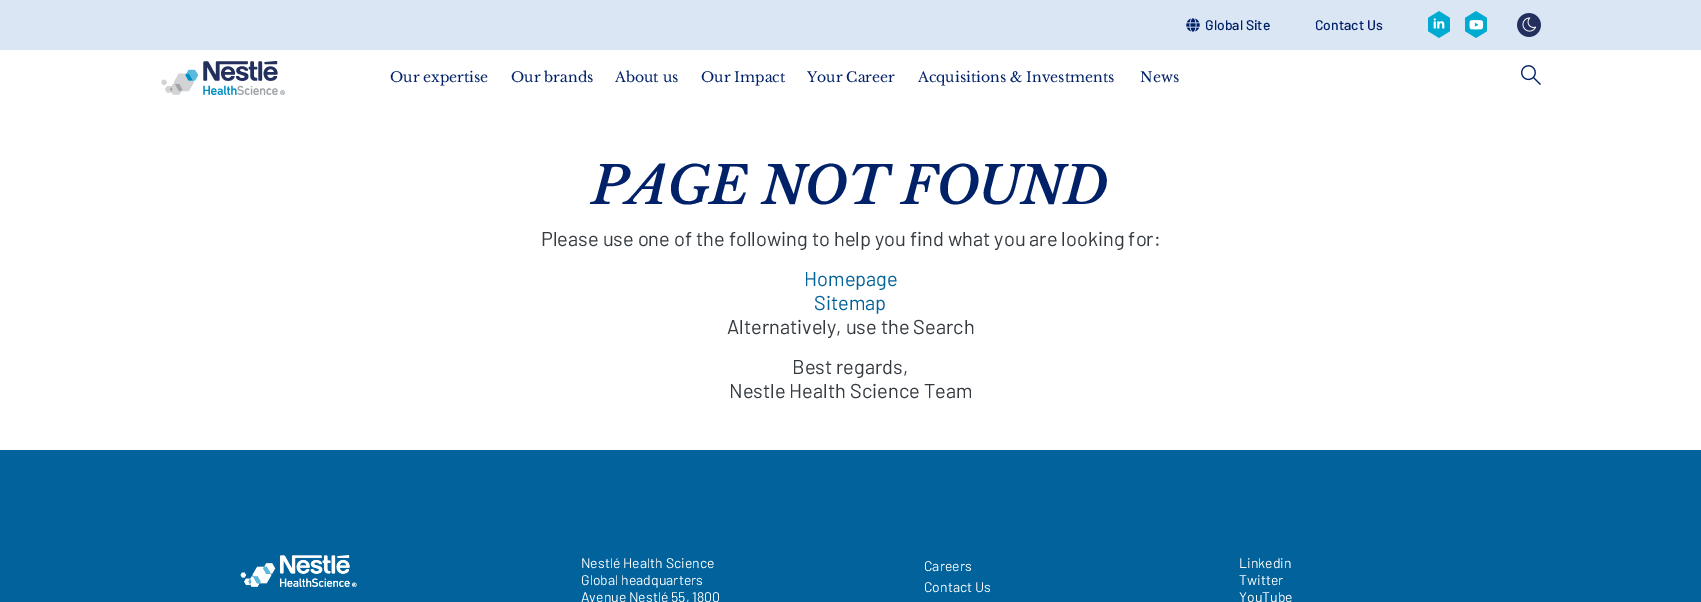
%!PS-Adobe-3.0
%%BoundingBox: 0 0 1701 602
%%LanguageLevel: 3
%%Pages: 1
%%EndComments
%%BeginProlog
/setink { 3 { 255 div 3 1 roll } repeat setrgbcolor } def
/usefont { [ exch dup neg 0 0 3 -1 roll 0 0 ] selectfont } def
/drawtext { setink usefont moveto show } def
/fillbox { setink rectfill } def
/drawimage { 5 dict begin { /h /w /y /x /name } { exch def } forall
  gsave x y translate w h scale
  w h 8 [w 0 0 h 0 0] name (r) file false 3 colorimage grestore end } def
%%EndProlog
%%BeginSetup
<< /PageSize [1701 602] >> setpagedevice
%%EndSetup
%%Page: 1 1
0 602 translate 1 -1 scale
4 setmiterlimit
0 0 1701 602 255 255 255 fillbox
0 0 1701 50 218 230 244 fillbox
(assets/img1.rgb) 1186 18 14 14 drawimage
(Global Site) 1205 30 /Barlow-Medium 14 1 33 105 drawtext
(Contact Us) 1315 30 /Barlow-Medium 14 1 33 105 drawtext
(assets/img2.rgb) 1428 11 22 27 drawimage
(assets/img3.rgb) 1465 11 22 27 drawimage
(assets/img4.rgb) 1517 13 24 24 drawimage
(assets/img5.rgb) 161 61 124 34 drawimage
(Our expertise) 390 82 /LibreBaskerville-Regular 14 1 33 105 drawtext
(Our brands) 511 82 /LibreBaskerville-Regular 14 1 33 105 drawtext
(About us) 615 82 /LibreBaskerville-Regular 14 1 33 105 drawtext
(Our Impact) 701 82 /LibreBaskerville-Regular 14 1 33 105 drawtext
(Your Career) 807 82 /LibreBaskerville-Regular 14 1 33 105 drawtext
(Acquisitions & Investments) 918 82 /LibreBaskerville-Regular 14 1 33 105 drawtext
(News) 1140 82 /LibreBaskerville-Regular 14 1 33 105 drawtext
(assets/img6.rgb) 1521 65 20 20 drawimage
(PAGE NOT FOUND) 592 204 /LibreBaskerville-SemiBoldItalic 52 1 33 105 drawtext
(Please use one of the following to help you find what you are looking for:) 541 246 /Barlow-Regular 20 52 58 64 drawtext
(Homepage) 804 286 /Barlow-Regular 20 2 98 155 drawtext
(Sitemap) 814 310 /Barlow-Regular 20 2 98 155 drawtext
(Alternatively, use the Search) 727 334 /Barlow-Regular 20 52 58 64 drawtext
(Best regards,) 792 374 /Barlow-Regular 20 52 58 64 drawtext
(Nestle Health Science Team) 729 398 /Barlow-Regular 20 52 58 64 drawtext
0 450 1701 152 2 98 155 fillbox
(assets/img7.rgb) 240 555 117 32 drawimage
(Nestlé Health Science) 581 568 /Barlow-Regular 14 255 255 255 drawtext
(Global headquarters) 581 585 /Barlow-Regular 14 255 255 255 drawtext
(Avenue Nestlé 55, 1800) 581 602 /Barlow-Regular 14 255 255 255 drawtext
(Careers) 924 571 /Barlow-Regular 14 255 255 255 drawtext
(Contact Us) 924 592 /Barlow-Regular 14 255 255 255 drawtext
(Linkedin) 1239 568 /Barlow-Regular 14 255 255 255 drawtext
(Twitter) 1239 585 /Barlow-Regular 14 255 255 255 drawtext
(YouTube) 1239 602 /Barlow-Regular 14 255 255 255 drawtext
showpage
%%EOF
